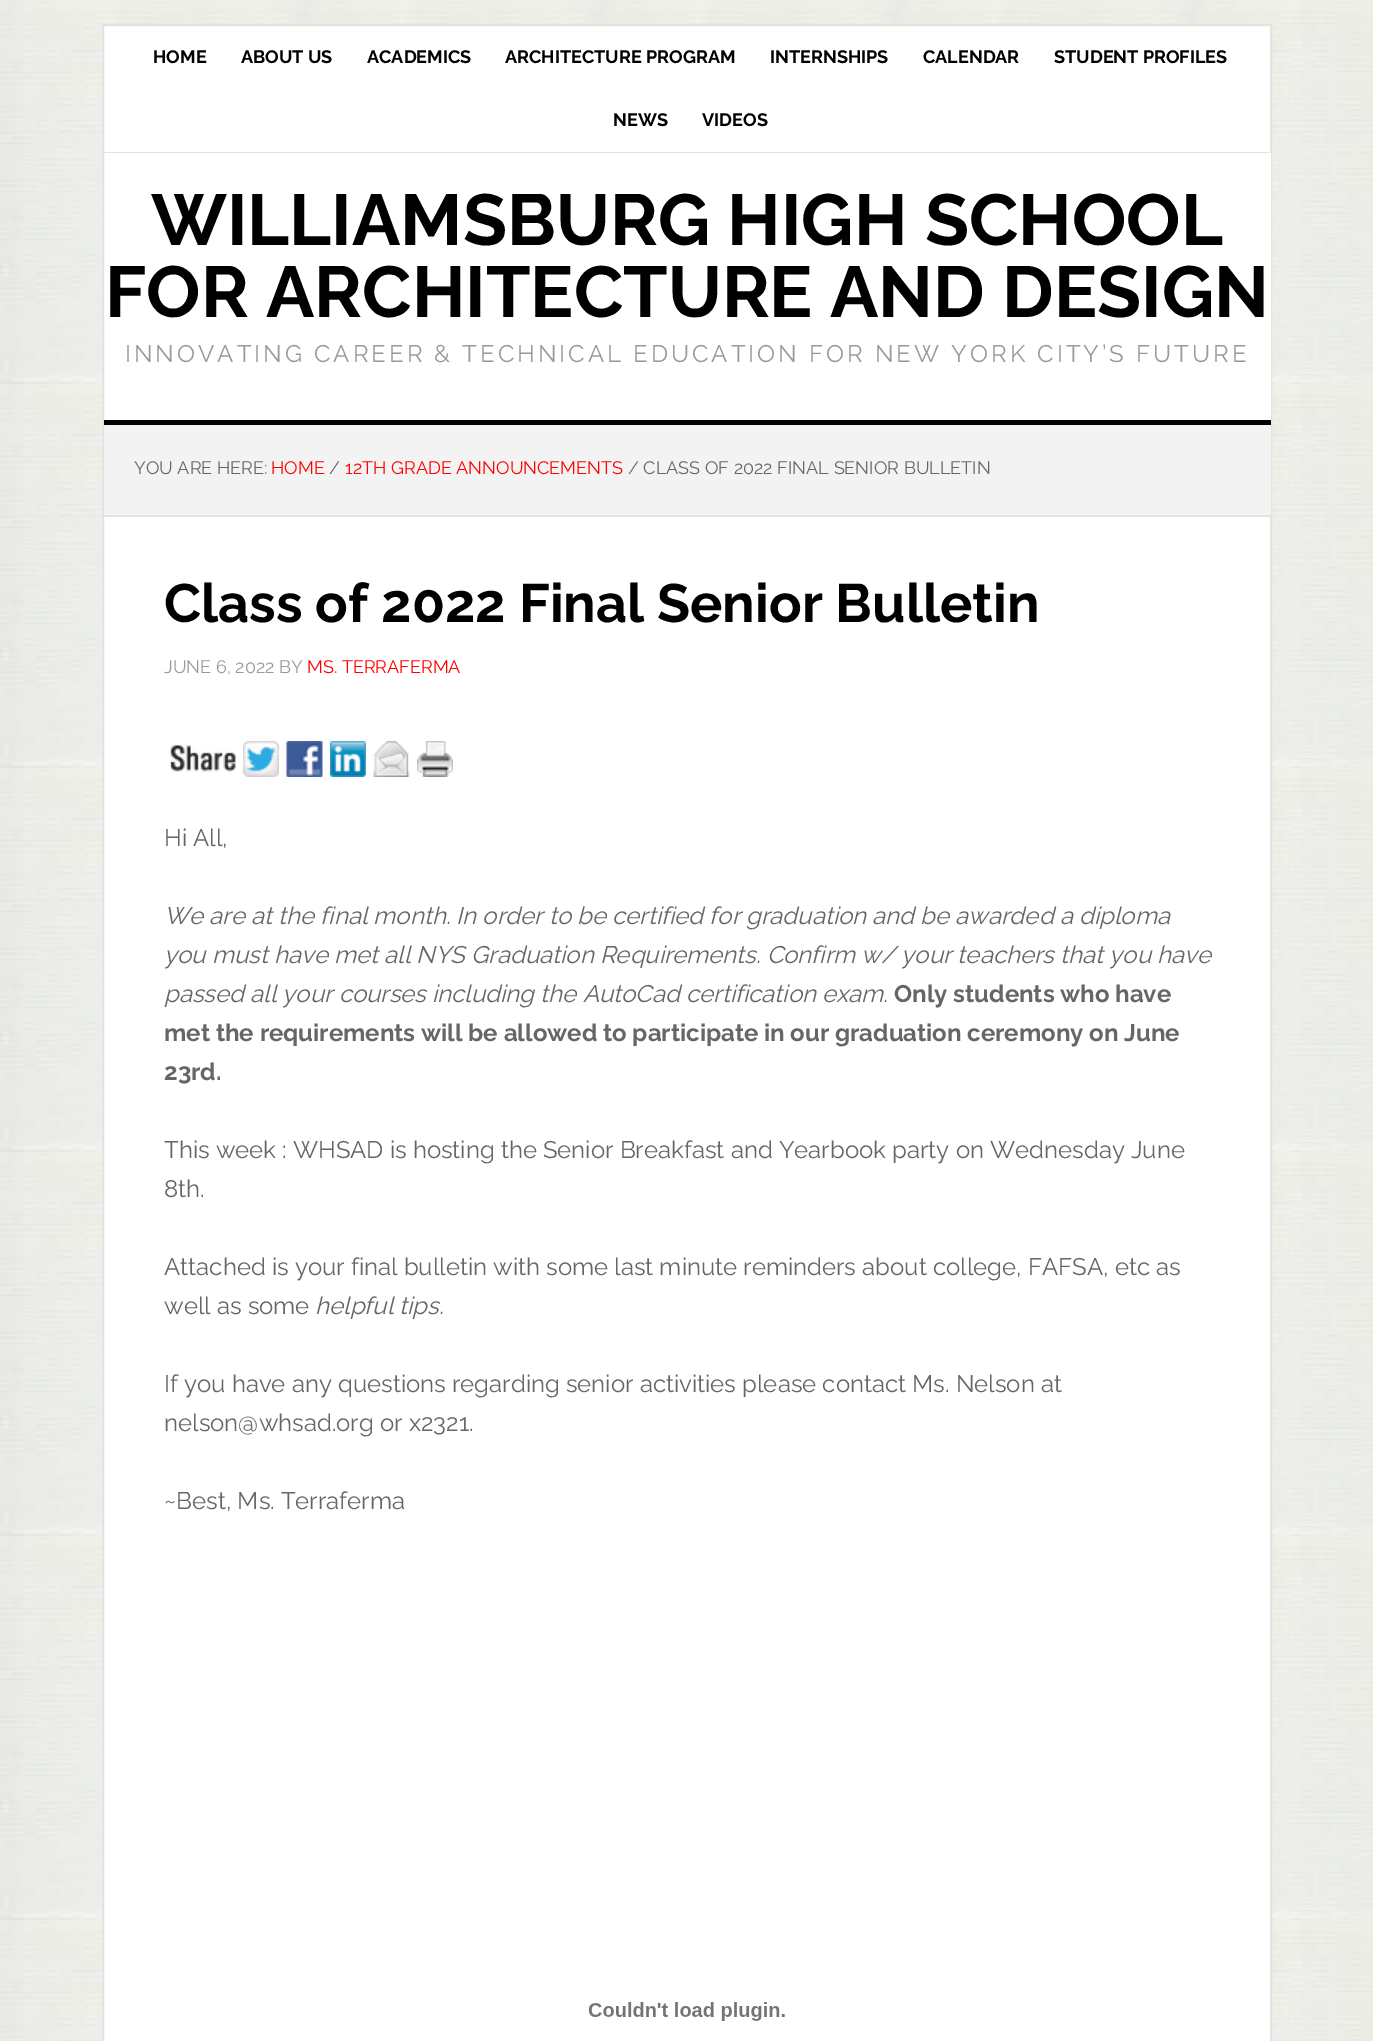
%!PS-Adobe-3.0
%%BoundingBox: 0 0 1373 2041
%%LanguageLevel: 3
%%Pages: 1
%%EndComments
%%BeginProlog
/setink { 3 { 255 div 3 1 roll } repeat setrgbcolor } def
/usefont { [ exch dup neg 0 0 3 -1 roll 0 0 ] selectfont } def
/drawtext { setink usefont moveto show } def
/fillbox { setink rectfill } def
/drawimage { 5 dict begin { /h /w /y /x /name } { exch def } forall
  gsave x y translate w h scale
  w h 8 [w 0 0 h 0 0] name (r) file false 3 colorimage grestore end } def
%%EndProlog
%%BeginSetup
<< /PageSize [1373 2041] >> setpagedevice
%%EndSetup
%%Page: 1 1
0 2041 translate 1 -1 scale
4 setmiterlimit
0 0 1373 2041 255 255 255 fillbox
(assets/img1.rgb) 0 0 1373 2041 drawimage
103 25 moveto 1271 25 lineto 1271 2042 lineto 103 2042 lineto closepath gsave fill grestore
227 227 227 setink
2 setlinewidth
stroke
104 152 1167 1 227 227 227 fillbox
(HOME) 153 63 /Raleway-Bold 18 0 0 0 drawtext
(ABOUT US) 241 63 /Raleway-Bold 18 0 0 0 drawtext
(ACADEMICS) 367 63 /Raleway-Bold 18 0 0 0 drawtext
(ARCHITECTURE PROGRAM) 505 63 /Raleway-Bold 18 0 0 0 drawtext
(INTERNSHIPS) 770 63 /Raleway-Bold 18 0 0 0 drawtext
(CALENDAR) 923 63 /Raleway-Bold 18 0 0 0 drawtext
(STUDENT PROFILES) 1054 63 /Raleway-Bold 18 0 0 0 drawtext
(NEWS) 613 126 /Raleway-Bold 18 0 0 0 drawtext
(VIDEOS) 702 126 /Raleway-Bold 18 0 0 0 drawtext
1270 153 1 267 255 255 255 fillbox
104 420 1167 5 0 0 0 fillbox
(WILLIAMSBURG HIGH SCHOOL) 151 245 /Raleway-Bold 72 0 0 0 drawtext
(FOR ARCHITECTURE AND DESIGN) 105 317 /Raleway-Bold 72 0 0 0 drawtext
/Raleway-Regular 24 usefont
153 153 153 setink
125 362 moveto 3 0 (INNOVATING CAREER & TECHNICAL EDUCATION FOR NEW YORK CITY’S FUTURE) ashow
104 425 1167 90 243 243 243 fillbox
104 515 1167 2 227 227 227 fillbox
(YOU ARE HERE:) 134 474 /Raleway-Regular 18 102 102 102 drawtext
(HOME) 271 474 /Raleway-Regular 18 255 0 0 drawtext
(/) 329 474 /Raleway-Regular 18 102 102 102 drawtext
(12TH GRADE ANNOUNCEMENTS) 345 474 /Raleway-Regular 18 255 0 0 drawtext
(/ CLASS OF 2022 FINAL SENIOR BULLETIN) 628 474 /Raleway-Regular 18 102 102 102 drawtext
(Class of 2022 Final Senior Bulletin) 164 622 /Raleway-Bold 54 0 0 0 drawtext
(JUNE 6, 2022 BY) 164 673 /Raleway-Regular 18 153 153 153 drawtext
(MS. TERRAFERMA) 307 673 /Raleway-Regular 18 255 0 0 drawtext
(assets/img2.rgb) 170 744 67 28 drawimage
(assets/img3.rgb) 243 741 36 36 drawimage
(assets/img4.rgb) 286 741 37 36 drawimage
(assets/img5.rgb) 330 741 36 36 drawimage
(assets/img6.rgb) 373 741 37 36 drawimage
(assets/img7.rgb) 417 741 36 36 drawimage
(Hi All,) 164 846 /Raleway-Regular 24 102 102 102 drawtext
(We are at the final month. In order to be certified for graduation and be awarded a diploma) 164 924 /Raleway-Italic 24 102 102 102 drawtext
(you must have met all NYS Graduation Requirements. Confirm w/ your teachers that you have) 164 963 /Raleway-Italic 24 102 102 102 drawtext
(passed all your courses including the AutoCad certification exam.) 164 1002 /Raleway-Italic 24 102 102 102 drawtext
(Only students who have) 894 1002 /Raleway-Bold 24 102 102 102 drawtext
(met the requirements will be allowed to participate in our graduation ceremony on June) 164 1041 /Raleway-Bold 24 102 102 102 drawtext
(23rd.) 164 1080 /Raleway-Bold 24 102 102 102 drawtext
(This week : WHSAD is hosting the Senior Breakfast and Yearbook party on Wednesday June) 164 1158 /Raleway-Regular 24 102 102 102 drawtext
(8th.) 164 1197 /Raleway-Regular 24 102 102 102 drawtext
(Attached is your final bulletin with some last minute reminders about college, FAFSA, etc as) 164 1275 /Raleway-Regular 24 102 102 102 drawtext
(well as some) 164 1314 /Raleway-Regular 24 102 102 102 drawtext
(helpful tips.) 315 1314 /Raleway-Italic 24 102 102 102 drawtext
(If you have any questions regarding senior activities please contact Ms. Nelson at) 164 1392 /Raleway-Regular 24 102 102 102 drawtext
(nelson@whsad.org or x2321.) 164 1431 /Raleway-Regular 24 102 102 102 drawtext
(~Best, Ms. Terraferma) 164 1509 /Raleway-Regular 24 102 102 102 drawtext
(assets/img8.rgb) 588 2002 197 19 drawimage
showpage
%%EOF
